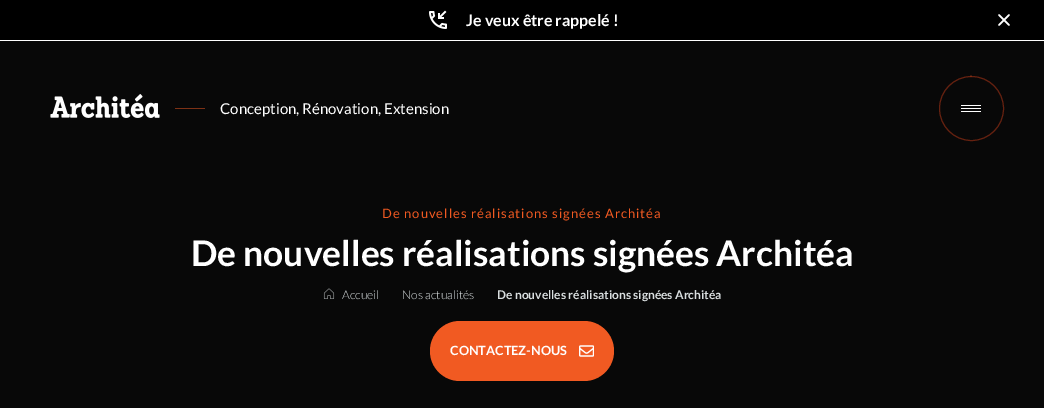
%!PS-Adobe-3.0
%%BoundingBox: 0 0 1044 408
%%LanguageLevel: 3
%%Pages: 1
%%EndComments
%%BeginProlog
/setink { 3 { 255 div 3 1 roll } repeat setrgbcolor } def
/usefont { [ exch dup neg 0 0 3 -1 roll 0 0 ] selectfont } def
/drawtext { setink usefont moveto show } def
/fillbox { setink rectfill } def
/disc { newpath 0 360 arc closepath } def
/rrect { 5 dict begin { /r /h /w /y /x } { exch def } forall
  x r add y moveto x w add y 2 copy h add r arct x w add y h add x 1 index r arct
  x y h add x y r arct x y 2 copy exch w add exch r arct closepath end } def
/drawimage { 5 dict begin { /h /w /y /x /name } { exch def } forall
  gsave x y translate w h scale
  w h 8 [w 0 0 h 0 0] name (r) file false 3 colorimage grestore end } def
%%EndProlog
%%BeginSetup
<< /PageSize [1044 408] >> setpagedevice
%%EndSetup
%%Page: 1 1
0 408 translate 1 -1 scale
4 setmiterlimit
0 0 1044 408 8 8 8 fillbox
0 0 1044 40 0 0 0 fillbox
0 40 1044 1 255 255 255 fillbox
(assets/img1.rgb) 429 10 18 19 drawimage
(Je veux être rappelé !) 466 26 /Lato-Bold 16 255 255 255 drawtext
1.6 setlinewidth
1 setlinecap
1 setlinejoin
999 15 moveto 1009 25 lineto 1009 15 moveto 999 25 lineto stroke
(assets/img2.rgb) 50 94 110 24 drawimage
175 108 30 1 125 49 21 fillbox
(Conception, Rénovation, Extension) 220 114 /Lato-Regular 15 255 255 255 drawtext
101 33 16 setink
1 setlinewidth
0 setlinecap
0 setlinejoin
971.5 108.5 32 disc stroke
241 90 34 setink
0.8 setlinewidth
1 setlinecap
[0 799.2] 0 setdash
971 76 moveto 988.5 76 1003 90.5 1003 108 curveto 1003 125.5 988.5 140 971 140 curveto 953.5 140 939 125.5 939 108 curveto 939 90.5 953.5 76 971 76 curveto closepath stroke
961 108 20 1 255 255 255 fillbox
961 105 20 1 255 255 255 fillbox
961 111 20 1 255 255 255 fillbox
/Lato-Regular 13 usefont
241 90 34 setink
382 218 moveto 1 0 (De nouvelles réalisations signées Architéa) ashow
(De nouvelles réalisations signées Architéa) 191 266 /Lato-Bold 35.4 255 255 255 drawtext
(assets/img3.rgb) 323 288 12 11 drawimage
(Accueil) 342 299 /Lato-Light 12 217 222 223 drawtext
(Nos actualités) 402 299 /Lato-Light 12 217 222 223 drawtext
(De nouvelles réalisations signées Architéa) 497 299 /Lato-Bold 12 217 222 223 drawtext
241 90 34 setink
430 321 184 60 30 rrect fill
(CONTACTEZ-NOUS) 450 355 /Lato-Bold 12.75 255 255 255 drawtext
(assets/img4.rgb) 579 345 15 12 drawimage
showpage
%%EOF
